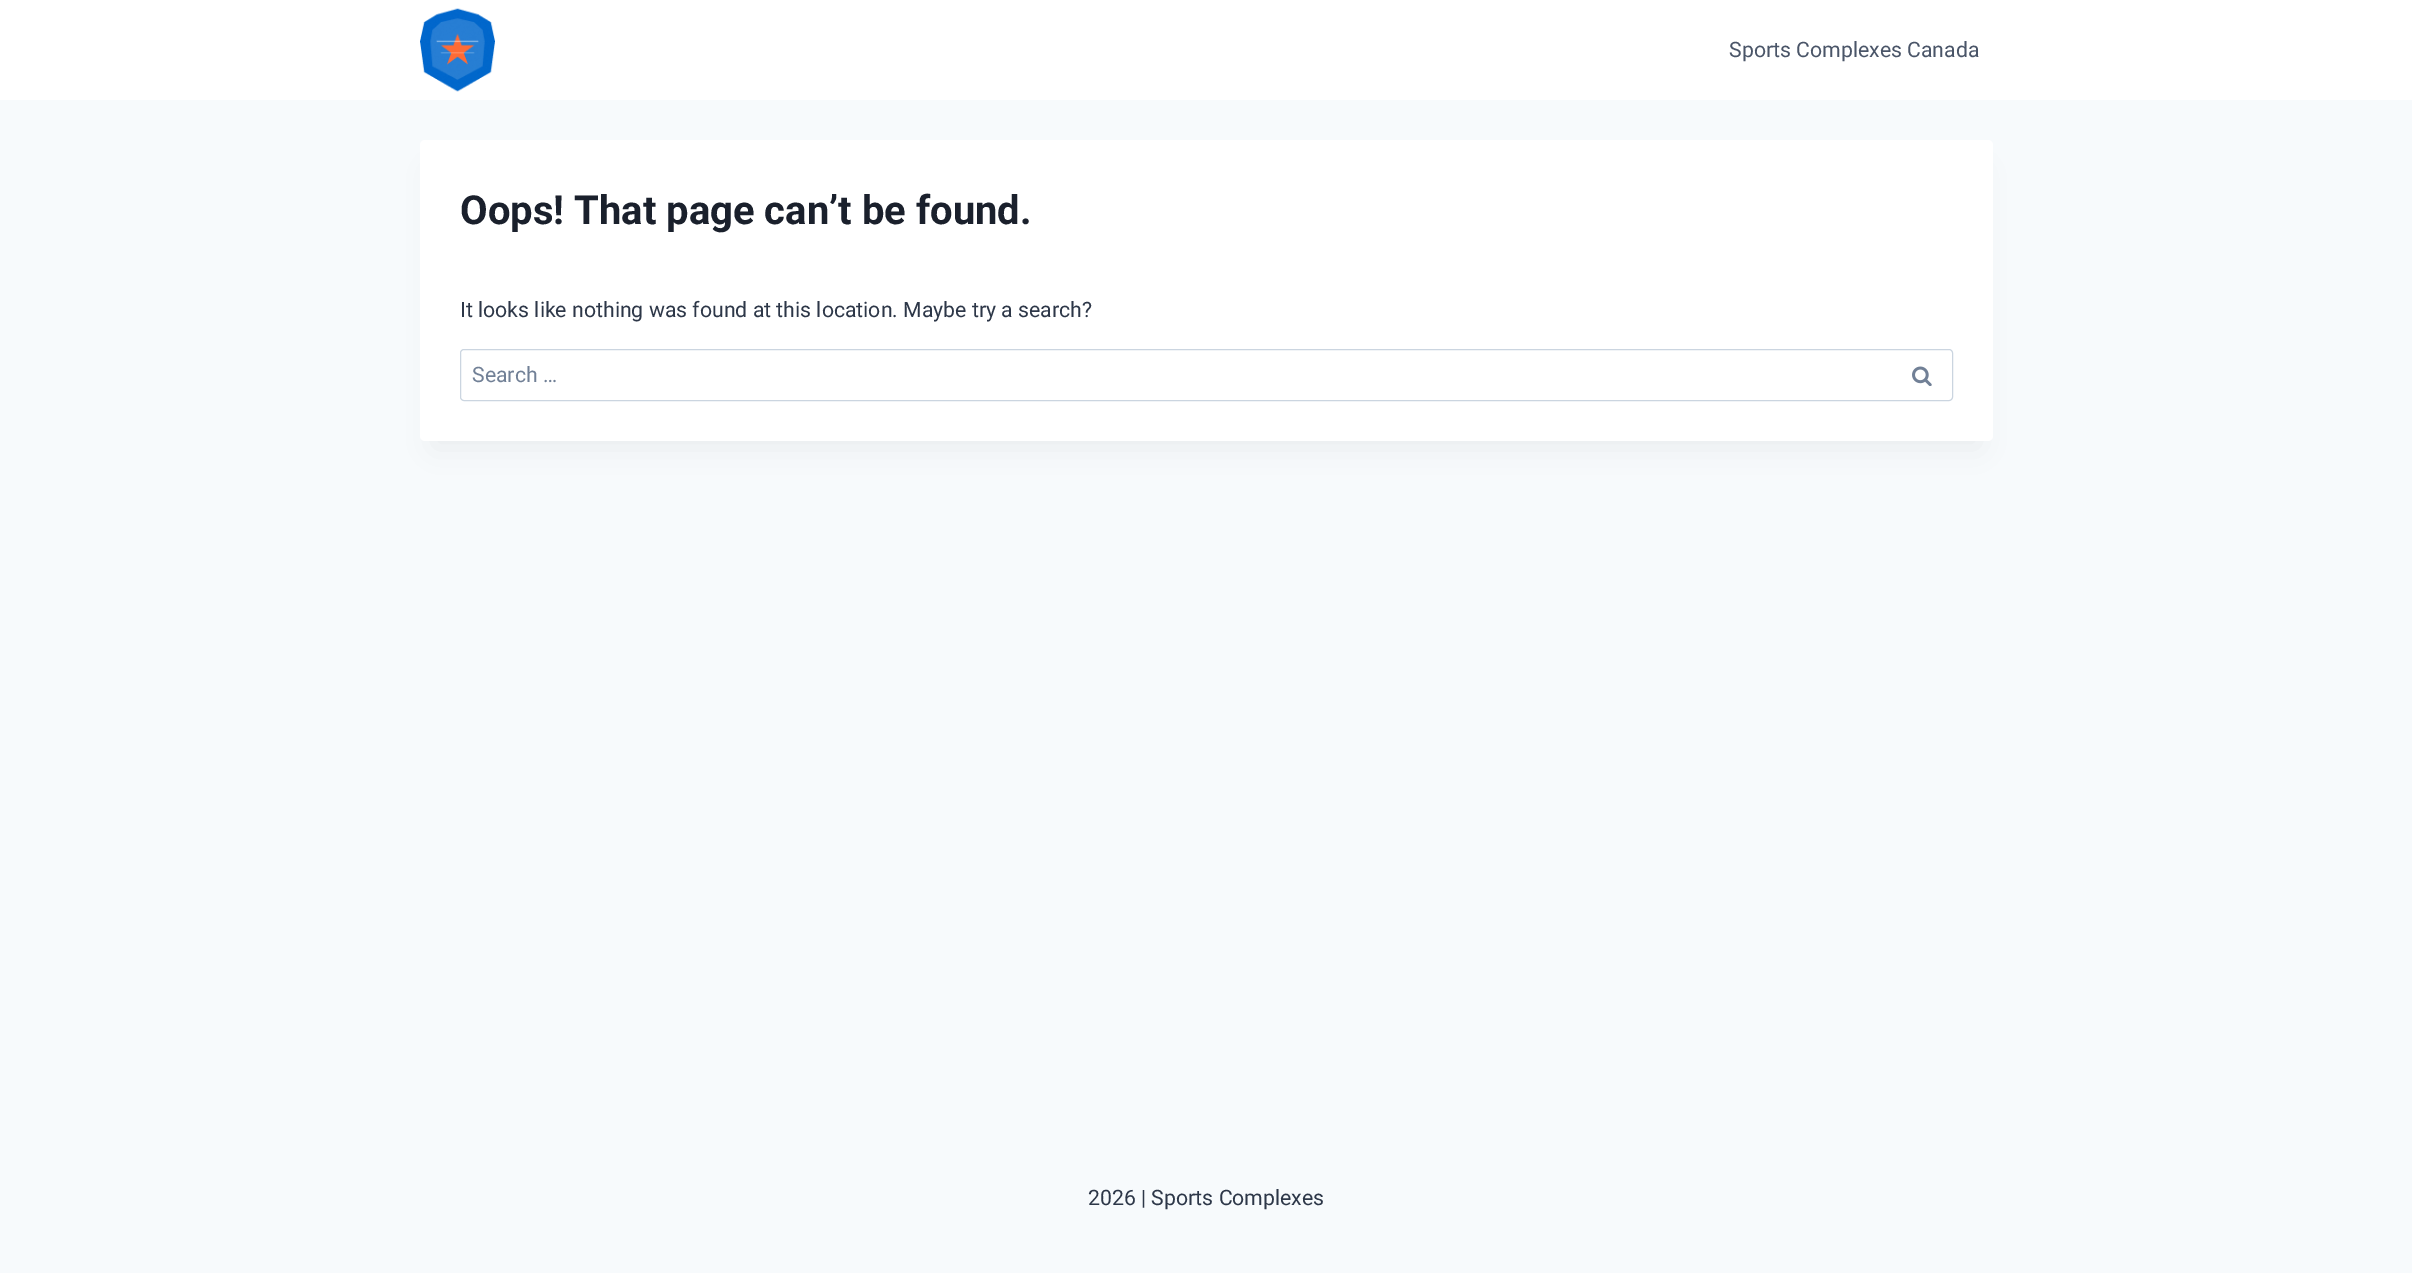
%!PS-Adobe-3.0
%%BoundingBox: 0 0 2412 1273
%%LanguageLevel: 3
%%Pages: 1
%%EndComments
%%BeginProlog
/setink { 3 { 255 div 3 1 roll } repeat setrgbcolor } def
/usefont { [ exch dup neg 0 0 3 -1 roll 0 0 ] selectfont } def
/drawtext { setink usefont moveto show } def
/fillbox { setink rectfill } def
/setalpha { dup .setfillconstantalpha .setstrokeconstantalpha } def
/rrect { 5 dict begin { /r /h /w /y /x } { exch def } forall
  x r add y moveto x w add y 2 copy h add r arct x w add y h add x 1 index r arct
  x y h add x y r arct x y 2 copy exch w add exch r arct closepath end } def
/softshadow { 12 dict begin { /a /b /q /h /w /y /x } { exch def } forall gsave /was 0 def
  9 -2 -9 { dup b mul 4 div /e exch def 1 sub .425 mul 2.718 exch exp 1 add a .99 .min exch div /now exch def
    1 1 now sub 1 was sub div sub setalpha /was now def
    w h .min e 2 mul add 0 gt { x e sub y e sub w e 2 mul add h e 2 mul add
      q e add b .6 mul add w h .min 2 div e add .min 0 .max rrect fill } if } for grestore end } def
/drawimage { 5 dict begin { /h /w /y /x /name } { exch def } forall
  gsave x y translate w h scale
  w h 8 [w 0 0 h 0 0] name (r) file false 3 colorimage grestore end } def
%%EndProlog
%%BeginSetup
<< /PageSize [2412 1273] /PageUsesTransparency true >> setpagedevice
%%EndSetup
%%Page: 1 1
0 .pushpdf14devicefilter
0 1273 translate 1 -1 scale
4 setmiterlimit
0 0 2412 1273 247 250 252 fillbox
0 0 2412 100 255 255 255 fillbox
(assets/img1.rgb) 420 8 75 84 drawimage
(Sports Complexes Canada) 1729 57 /Roboto-Regular 21.25 74 85 104 drawtext
0 0 0 setink
433 171 1547 277 0 15.5 0.05 softshadow
255 255 255 setink
420 140 1573 301 5 rrect fill
(Oops! That page can’t be found.) 460 224 /Roboto-Bold 40 26 32 44 drawtext
(It looks like nothing was found at this location. Maybe try a search?) 460 317 /Roboto-Regular 21.25 45 55 72 drawtext
203 213 224 setink
460.5 349.5 1492 51 3.5 rrect stroke
(Search …) 472 382 /Roboto-Regular 21.25 113 128 150 drawtext
(assets/img2.rgb) 1912 366 20 20 drawimage
(2026 | Sports Complexes) 1088 1205 /Roboto-Regular 21.25 45 55 72 drawtext
.poppdf14devicefilter showpage
%%EOF
